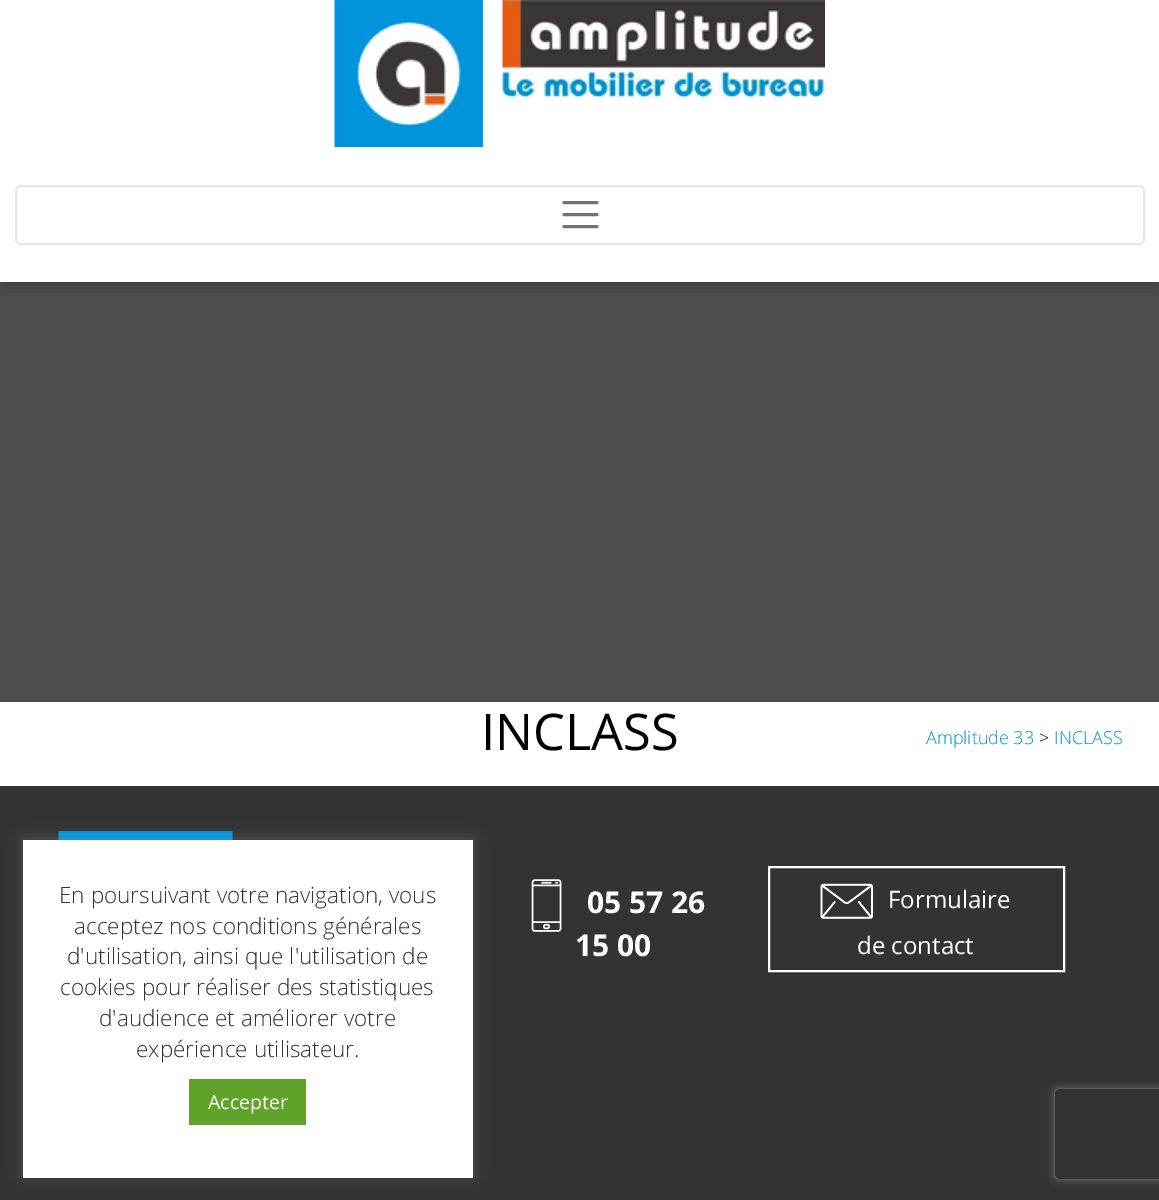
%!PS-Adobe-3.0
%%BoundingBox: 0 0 1159 1200
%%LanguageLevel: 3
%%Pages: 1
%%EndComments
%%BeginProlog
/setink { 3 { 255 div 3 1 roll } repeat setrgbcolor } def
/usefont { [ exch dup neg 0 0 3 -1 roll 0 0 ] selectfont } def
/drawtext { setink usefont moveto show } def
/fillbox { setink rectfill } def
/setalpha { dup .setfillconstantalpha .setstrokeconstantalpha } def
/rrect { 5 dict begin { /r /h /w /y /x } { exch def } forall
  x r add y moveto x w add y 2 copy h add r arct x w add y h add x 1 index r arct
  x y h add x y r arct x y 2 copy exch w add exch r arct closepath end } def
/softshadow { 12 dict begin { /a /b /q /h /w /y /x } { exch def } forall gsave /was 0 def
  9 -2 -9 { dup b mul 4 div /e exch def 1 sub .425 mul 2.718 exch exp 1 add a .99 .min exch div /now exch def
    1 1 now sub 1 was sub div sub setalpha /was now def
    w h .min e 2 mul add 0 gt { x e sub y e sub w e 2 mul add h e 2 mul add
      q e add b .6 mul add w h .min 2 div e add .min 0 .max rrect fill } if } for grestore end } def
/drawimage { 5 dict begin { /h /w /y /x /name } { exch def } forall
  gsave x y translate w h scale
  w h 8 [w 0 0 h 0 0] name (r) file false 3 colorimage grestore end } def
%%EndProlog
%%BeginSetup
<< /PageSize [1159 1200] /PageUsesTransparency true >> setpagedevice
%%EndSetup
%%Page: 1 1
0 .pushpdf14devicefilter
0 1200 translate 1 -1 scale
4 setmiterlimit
0 0 1159 1200 255 255 255 fillbox
0 282 1159 420 77 77 77 fillbox
51 51 51 setink
0 5 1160 282 0 7.5 0.5 softshadow
0 0 1159 282 255 255 255 fillbox
(assets/img1.rgb) 334 0 491 147 drawimage
230 230 230 setink
2 setlinewidth
16 186 1128 58 5 rrect stroke
115 115 115 setink
3 setlinewidth
1 setlinecap
564 202.5 moveto 597 202.5 lineto 564 214.5 moveto 597 214.5 lineto 564 226.5 moveto 597 226.5 lineto stroke
(INCLASS) 481 750 /OpenSans-Regular 50.5 0 0 0 drawtext
(Amplitude 33) 926 744 /OpenSans-Light 18 0 148 213 drawtext
(>) 1039 744 /OpenSans-Light 18 0 0 0 drawtext
(INCLASS) 1054 744 /OpenSans-Light 18 0 148 213 drawtext
0 786 1159 414 51 51 51 fillbox
(assets/img2.rgb) 58 831 175 9 drawimage
172 171 171 setink
23 839 450 337 0 7.5 0.3 softshadow
23 840 450 338 255 255 255 fillbox
(En poursuivant votre navigation, vous) 59 903 /OpenSans-Light 22.5 51 51 51 drawtext
(acceptez nos conditions générales) 74 934 /OpenSans-Light 22.5 51 51 51 drawtext
(d'utilisation, ainsi que l'utilisation de) 67 964 /OpenSans-Light 22.5 51 51 51 drawtext
(cookies pour réaliser des statistiques) 60 995 /OpenSans-Light 22.5 51 51 51 drawtext
(d'audience et améliorer votre) 99 1026 /OpenSans-Light 22.5 51 51 51 drawtext
(expérience utilisateur.) 136 1057 /OpenSans-Light 22.5 51 51 51 drawtext
189 1079 117 46 97 162 41 fillbox
(Accepter) 208 1109 /OpenSans-Regular 19.5 255 255 255 drawtext
(assets/img3.rgb) 531 879 31 53 drawimage
(05 57 26) 587 913 /OpenSans-Bold 30 255 255 255 drawtext
(15 00) 575 956 /OpenSans-Bold 30 255 255 255 drawtext
2 setlinewidth
0 setlinecap
769 867 295 104 rectstroke
(assets/img4.rgb) 820 883 53 36 drawimage
(Formulaire) 888 908 /OpenSans-Regular 24 255 255 255 drawtext
(de contact) 857 954 /OpenSans-Regular 24 255 255 255 drawtext
gsave
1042 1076 moveto 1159 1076 lineto 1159 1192 lineto 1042 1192 lineto closepath 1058 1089 moveto 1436 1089 lineto 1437.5 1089 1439 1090.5 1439 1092 curveto 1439 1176 lineto 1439 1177.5 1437.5 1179 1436 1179 curveto 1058 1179 lineto 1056.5 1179 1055 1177.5 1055 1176 curveto 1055 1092 lineto 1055 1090.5 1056.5 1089 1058 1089 curveto closepath eoclip newpath
128 128 128 setink
1055 1089 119 90 3 4 1 softshadow
grestore
.poppdf14devicefilter showpage
%%EOF
